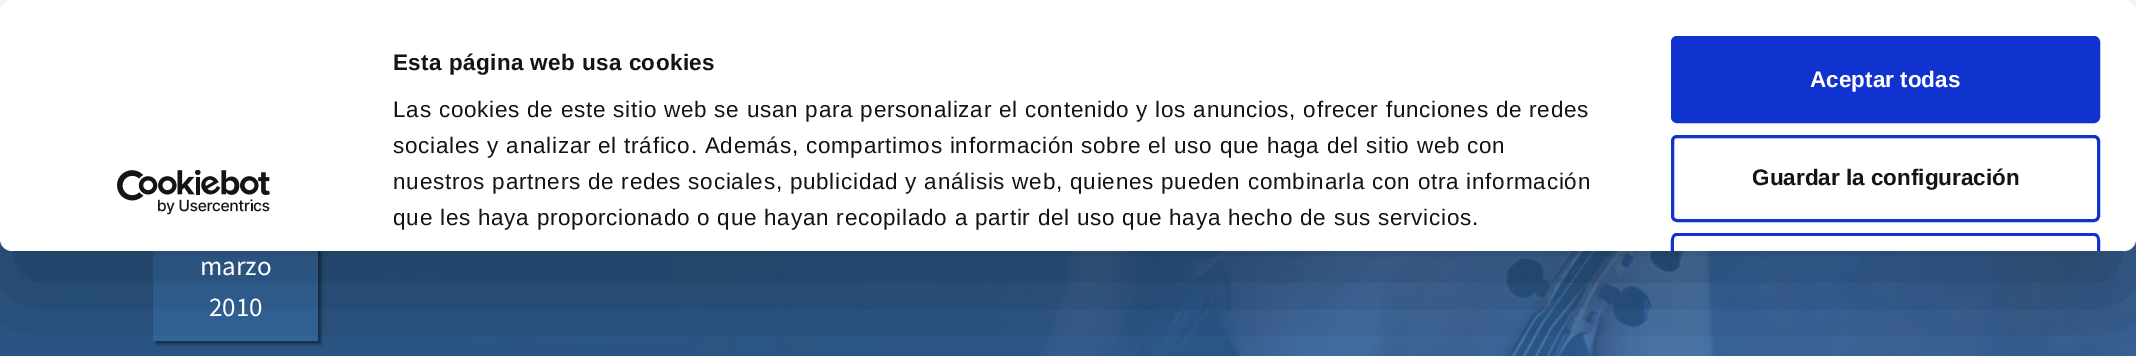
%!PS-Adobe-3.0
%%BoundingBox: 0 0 2136 356
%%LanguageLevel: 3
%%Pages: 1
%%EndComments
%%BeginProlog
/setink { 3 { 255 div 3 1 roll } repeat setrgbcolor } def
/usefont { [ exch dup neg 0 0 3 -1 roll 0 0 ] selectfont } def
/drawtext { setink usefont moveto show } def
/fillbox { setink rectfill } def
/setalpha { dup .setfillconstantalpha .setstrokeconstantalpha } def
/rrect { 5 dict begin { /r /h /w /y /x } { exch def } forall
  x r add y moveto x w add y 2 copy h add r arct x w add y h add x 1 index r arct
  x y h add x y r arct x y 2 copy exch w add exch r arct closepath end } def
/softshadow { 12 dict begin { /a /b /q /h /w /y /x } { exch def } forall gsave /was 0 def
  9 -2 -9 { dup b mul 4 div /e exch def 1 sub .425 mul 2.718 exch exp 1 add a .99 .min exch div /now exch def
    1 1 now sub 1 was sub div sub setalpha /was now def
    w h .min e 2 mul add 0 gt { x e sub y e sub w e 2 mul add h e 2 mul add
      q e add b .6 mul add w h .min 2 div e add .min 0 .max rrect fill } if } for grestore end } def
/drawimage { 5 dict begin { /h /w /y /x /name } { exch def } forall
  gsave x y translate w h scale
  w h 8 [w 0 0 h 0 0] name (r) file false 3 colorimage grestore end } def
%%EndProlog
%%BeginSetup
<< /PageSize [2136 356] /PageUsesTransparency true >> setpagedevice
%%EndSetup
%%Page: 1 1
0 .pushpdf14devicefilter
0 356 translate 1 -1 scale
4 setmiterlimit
0 0 2136 356 255 255 255 fillbox
(assets/img2.rgb) 0 239 2136 117 drawimage
0 0 0 setink
156 195 165 149 0 1.5 0.45 softshadow
153 251 165 90 52 105 161 fillbox
0 0 0 setink
0 45 2136 251 12 52.5 0.3 softshadow
255 255 255 setink
0 0 2136 251 12 rrect fill
(assets/img1.rgb) 117 170 153 45 drawimage
/LiberationSans-Bold 22.5 usefont
20 20 20 setink
393 70 moveto 0.4 0 (Esta página web usa cookies) ashow
/LiberationSans-Regular 22.5 usefont
393 117 moveto 0.75 0 (Las cookies de este sitio web se usan para personalizar el contenido y los anuncios, ofrecer funciones de redes) ashow
393 153 moveto 0.75 0 (sociales y analizar el tráfico. Además, compartimos información sobre el uso que haga del sitio web con) ashow
393 189 moveto 0.75 0 (nuestros partners de redes sociales, publicidad y análisis web, quienes pueden combinarla con otra información) ashow
393 225 moveto 0.75 0 (que les haya proporcionado o que hayan recopilado a partir del uso que haya hecho de sus servicios.) ashow
16 50 207 setink
1672.5 37.5 426 84 4.5 rrect gsave fill grestore
3 setlinewidth
stroke
(Aceptar todas) 1810 87 /LiberationSans-Bold 22.5 255 255 255 drawtext
16 50 207 setink
1672.5 136.5 426 84 4.5 rrect stroke
(Guardar la configuración) 1752 185 /LiberationSans-Bold 22.5 20 20 20 drawtext
16 50 207 setink
1677 233 moveto 1669 233 1671 246 1671 251 curveto 1674 251 lineto 1674 239 lineto 1674 237 1675 236 1677 236 curveto 2094 236 lineto 2096 236 2097 237 2097 239 curveto 2097 251 lineto 2100 251 lineto 2100 246 2102 233 2094 233 curveto closepath fill
(marzo) 200 275 /SourceSansPro-Regular 27 255 255 255 drawtext
(2010) 209 316 /SourceSansPro-Regular 27 255 255 255 drawtext
.poppdf14devicefilter showpage
%%EOF
